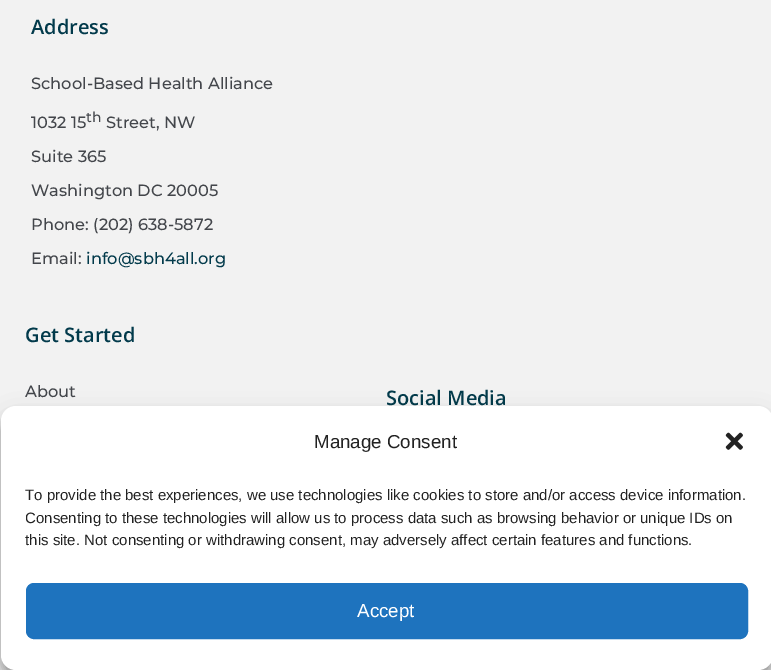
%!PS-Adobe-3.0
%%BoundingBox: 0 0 771 670
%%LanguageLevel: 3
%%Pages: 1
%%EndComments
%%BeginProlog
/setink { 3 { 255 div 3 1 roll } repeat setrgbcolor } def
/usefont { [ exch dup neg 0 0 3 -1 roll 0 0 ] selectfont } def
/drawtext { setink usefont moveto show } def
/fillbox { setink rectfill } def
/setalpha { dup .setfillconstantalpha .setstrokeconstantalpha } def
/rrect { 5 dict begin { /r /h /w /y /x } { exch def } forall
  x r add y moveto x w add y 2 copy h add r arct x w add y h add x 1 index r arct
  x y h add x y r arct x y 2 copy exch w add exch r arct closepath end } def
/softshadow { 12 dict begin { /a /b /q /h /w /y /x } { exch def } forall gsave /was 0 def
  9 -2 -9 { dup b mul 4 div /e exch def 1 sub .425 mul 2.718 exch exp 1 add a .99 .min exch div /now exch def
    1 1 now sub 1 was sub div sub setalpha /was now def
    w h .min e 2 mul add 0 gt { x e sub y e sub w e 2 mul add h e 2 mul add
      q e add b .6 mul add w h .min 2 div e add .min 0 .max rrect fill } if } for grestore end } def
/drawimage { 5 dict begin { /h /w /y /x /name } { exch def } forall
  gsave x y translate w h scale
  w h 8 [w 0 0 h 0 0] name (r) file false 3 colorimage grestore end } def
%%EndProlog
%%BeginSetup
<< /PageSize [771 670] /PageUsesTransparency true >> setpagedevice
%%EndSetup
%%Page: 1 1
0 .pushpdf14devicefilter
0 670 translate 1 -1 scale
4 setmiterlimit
0 0 771 670 242 242 242 fillbox
(Address) 31 34 /OpenSans-SemiBold 20 2 58 75 drawtext
(School-Based Health Alliance) 31 89 /Montserrat-Medium 16.25 67 70 75 drawtext
(1032 15) 31 128 /Montserrat-Medium 16.25 67 70 75 drawtext
(th) 86 122 /Montserrat-Medium 14 67 70 75 drawtext
(Street, NW) 106 128 /Montserrat-Medium 16.25 67 70 75 drawtext
(Suite 365) 31 162 /Montserrat-Medium 16.25 67 70 75 drawtext
(Washington DC 20005) 31 196 /Montserrat-Medium 16.25 67 70 75 drawtext
(Phone: \(202\) 638-5872) 31 230 /Montserrat-Medium 16.25 67 70 75 drawtext
(Email:) 31 264 /Montserrat-Medium 16.25 67 70 75 drawtext
(info@sbh4all.org) 86 264 /Montserrat-Medium 16.25 2 58 75 drawtext
(Get Started) 25 342 /OpenSans-SemiBold 20 2 58 75 drawtext
(About) 25 397 /Montserrat-Medium 16.25 67 70 75 drawtext
(Social Media) 386 405 /OpenSans-SemiBold 20 2 58 75 drawtext
gsave
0 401 moveto 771 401 lineto 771 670 lineto 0 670 lineto closepath 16 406 moveto 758 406 lineto 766.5 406 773 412.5 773 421 curveto 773 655 lineto 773 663.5 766.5 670 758 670 curveto 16 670 lineto 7.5 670 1 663.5 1 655 curveto 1 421 lineto 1 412.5 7.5 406 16 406 curveto closepath eoclip newpath
0 0 0 setink
1 414 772 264 15 4 0.23 softshadow
grestore
gsave
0 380 moveto 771 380 lineto 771 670 lineto 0 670 lineto closepath 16 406 moveto 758 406 lineto 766.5 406 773 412.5 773 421 curveto 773 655 lineto 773 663.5 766.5 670 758 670 curveto 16 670 lineto 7.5 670 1 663.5 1 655 curveto 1 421 lineto 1 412.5 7.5 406 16 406 curveto closepath eoclip newpath
0 0 0 setink
1 419 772 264 15 12.5 0.19 softshadow
grestore
255 255 255 setink
1 406 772 264 15 rrect fill
(Manage Consent) 314 448 /LiberationSans-Regular 18.75 34 34 34 drawtext
(assets/img1.rgb) 725 432 18 18 drawimage
(To provide the best experiences, we use technologies like cookies to store and/or access device information.) 25 500 /LiberationSans-Regular 15 34 34 34 drawtext
gsave
26 484 722 74 rectclip
(Consenting to these technologies will allow us to process data such as browsing behavior or unique IDs on) 25 523 /LiberationSans-Regular 15 34 34 34 drawtext
grestore
(this site. Not consenting or withdrawing consent, may adversely affect certain features and functions.) 25 545 /LiberationSans-Regular 15 34 34 34 drawtext
30 115 190 setink
26.5 583.5 721 55 7.5 rrect gsave fill grestore
stroke
(Accept) 357 617 /LiberationSans-Regular 18.75 255 255 255 drawtext
.poppdf14devicefilter showpage
%%EOF
